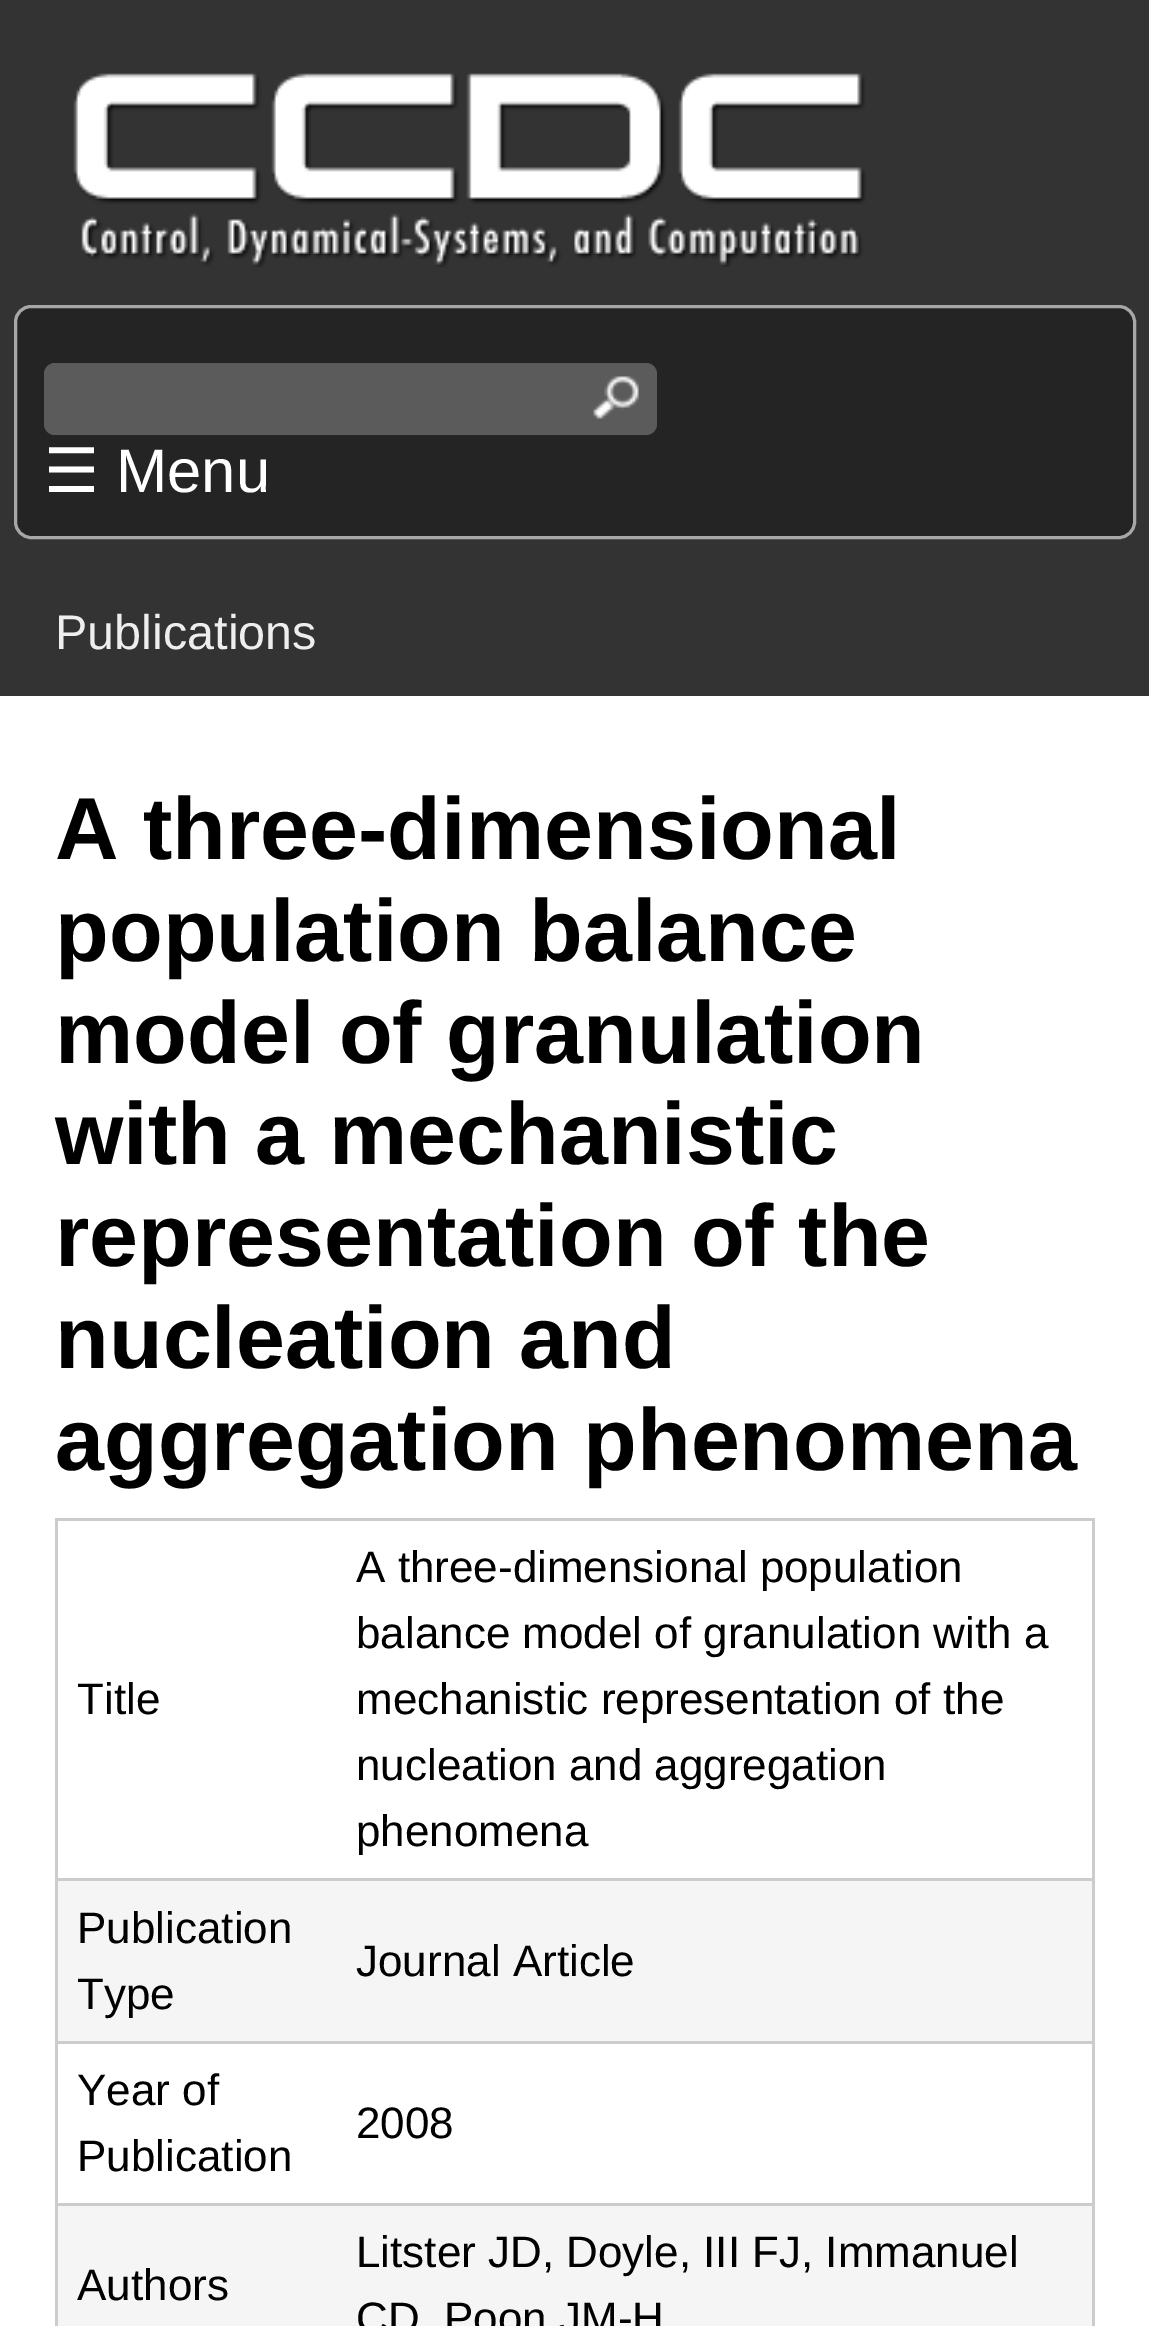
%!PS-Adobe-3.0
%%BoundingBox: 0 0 1149 2326
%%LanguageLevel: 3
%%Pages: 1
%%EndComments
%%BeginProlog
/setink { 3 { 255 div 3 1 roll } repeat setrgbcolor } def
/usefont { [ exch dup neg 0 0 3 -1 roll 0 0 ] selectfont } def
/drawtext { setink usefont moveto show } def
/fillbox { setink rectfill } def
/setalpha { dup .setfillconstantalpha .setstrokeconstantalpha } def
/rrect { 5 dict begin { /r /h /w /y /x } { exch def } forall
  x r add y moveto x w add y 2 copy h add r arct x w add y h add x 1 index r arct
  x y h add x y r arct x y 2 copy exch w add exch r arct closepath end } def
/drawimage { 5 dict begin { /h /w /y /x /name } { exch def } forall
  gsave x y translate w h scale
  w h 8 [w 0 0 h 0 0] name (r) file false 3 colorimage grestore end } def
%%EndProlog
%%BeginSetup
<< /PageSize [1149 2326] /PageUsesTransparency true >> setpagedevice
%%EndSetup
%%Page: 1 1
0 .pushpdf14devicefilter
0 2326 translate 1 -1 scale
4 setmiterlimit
0 0 1149 2326 51 51 51 fillbox
(assets/img1.rgb) 73 73 793 195 drawimage
36 36 36 setink
14 305 1122 234 17 rrect fill
0.6 setalpha
255 255 255 setink
3 setlinewidth
15.5 306.5 1119 231 15.5 rrect stroke
1 setalpha
91 91 91 setink
44 363 613 72 11 rrect fill
(assets/img2.rgb) 593 376 46 43 drawimage
(☰) 44 492 /DejaVuSans-Regular 61.5 255 255 255 drawtext
(Menu) 116 492 /LiberationSans-Regular 61.5 255 255 255 drawtext
(Publications) 55 649 /LiberationSans-Regular 48.5 238 238 238 drawtext
0 696 1149 1630 255 255 255 fillbox
(A three-dimensional) 55 859 /LiberationSans-Bold 88 0 0 0 drawtext
(population balance) 55 961 /LiberationSans-Bold 88 0 0 0 drawtext
(model of granulation) 55 1063 /LiberationSans-Bold 88 0 0 0 drawtext
(with a mechanistic) 55 1164 /LiberationSans-Bold 88 0 0 0 drawtext
(representation of the) 55 1266 /LiberationSans-Bold 88 0 0 0 drawtext
(nucleation and) 55 1368 /LiberationSans-Bold 88 0 0 0 drawtext
(aggregation phenomena) 55 1470 /LiberationSans-Bold 88 0 0 0 drawtext
55 1518 1040 3 204 204 204 fillbox
1092 1518 3 808 204 204 204 fillbox
55 1518 3 808 204 204 204 fillbox
(Title) 77 1714 /LiberationSans-Regular 44 0 0 0 drawtext
(A three-dimensional population) 356 1582 /LiberationSans-Regular 44 0 0 0 drawtext
(balance model of granulation with a) 356 1648 /LiberationSans-Regular 44 0 0 0 drawtext
(mechanistic representation of the) 356 1714 /LiberationSans-Regular 44 0 0 0 drawtext
(nucleation and aggregation) 356 1780 /LiberationSans-Regular 44 0 0 0 drawtext
(phenomena) 356 1846 /LiberationSans-Regular 44 0 0 0 drawtext
58 1881 1034 160 245 245 245 fillbox
55 1878 1040 3 204 204 204 fillbox
(Publication) 77 1943 /LiberationSans-Regular 44 0 0 0 drawtext
(Type) 77 2009 /LiberationSans-Regular 44 0 0 0 drawtext
(Journal Article) 356 1976 /LiberationSans-Regular 44 0 0 0 drawtext
55 2041 1040 3 204 204 204 fillbox
(Year of) 77 2105 /LiberationSans-Regular 44 0 0 0 drawtext
(Publication) 77 2171 /LiberationSans-Regular 44 0 0 0 drawtext
(2008) 356 2138 /LiberationSans-Regular 44 0 0 0 drawtext
58 2206 1034 120 245 245 245 fillbox
55 2203 1040 3 204 204 204 fillbox
(Authors) 77 2300 /LiberationSans-Regular 44 0 0 0 drawtext
(Litster JD, Doyle, III FJ, Immanuel) 356 2267 /LiberationSans-Regular 44 0 0 0 drawtext
(CD, Poon JM-H) 356 2333 /LiberationSans-Regular 44 0 0 0 drawtext
.poppdf14devicefilter showpage
%%EOF
